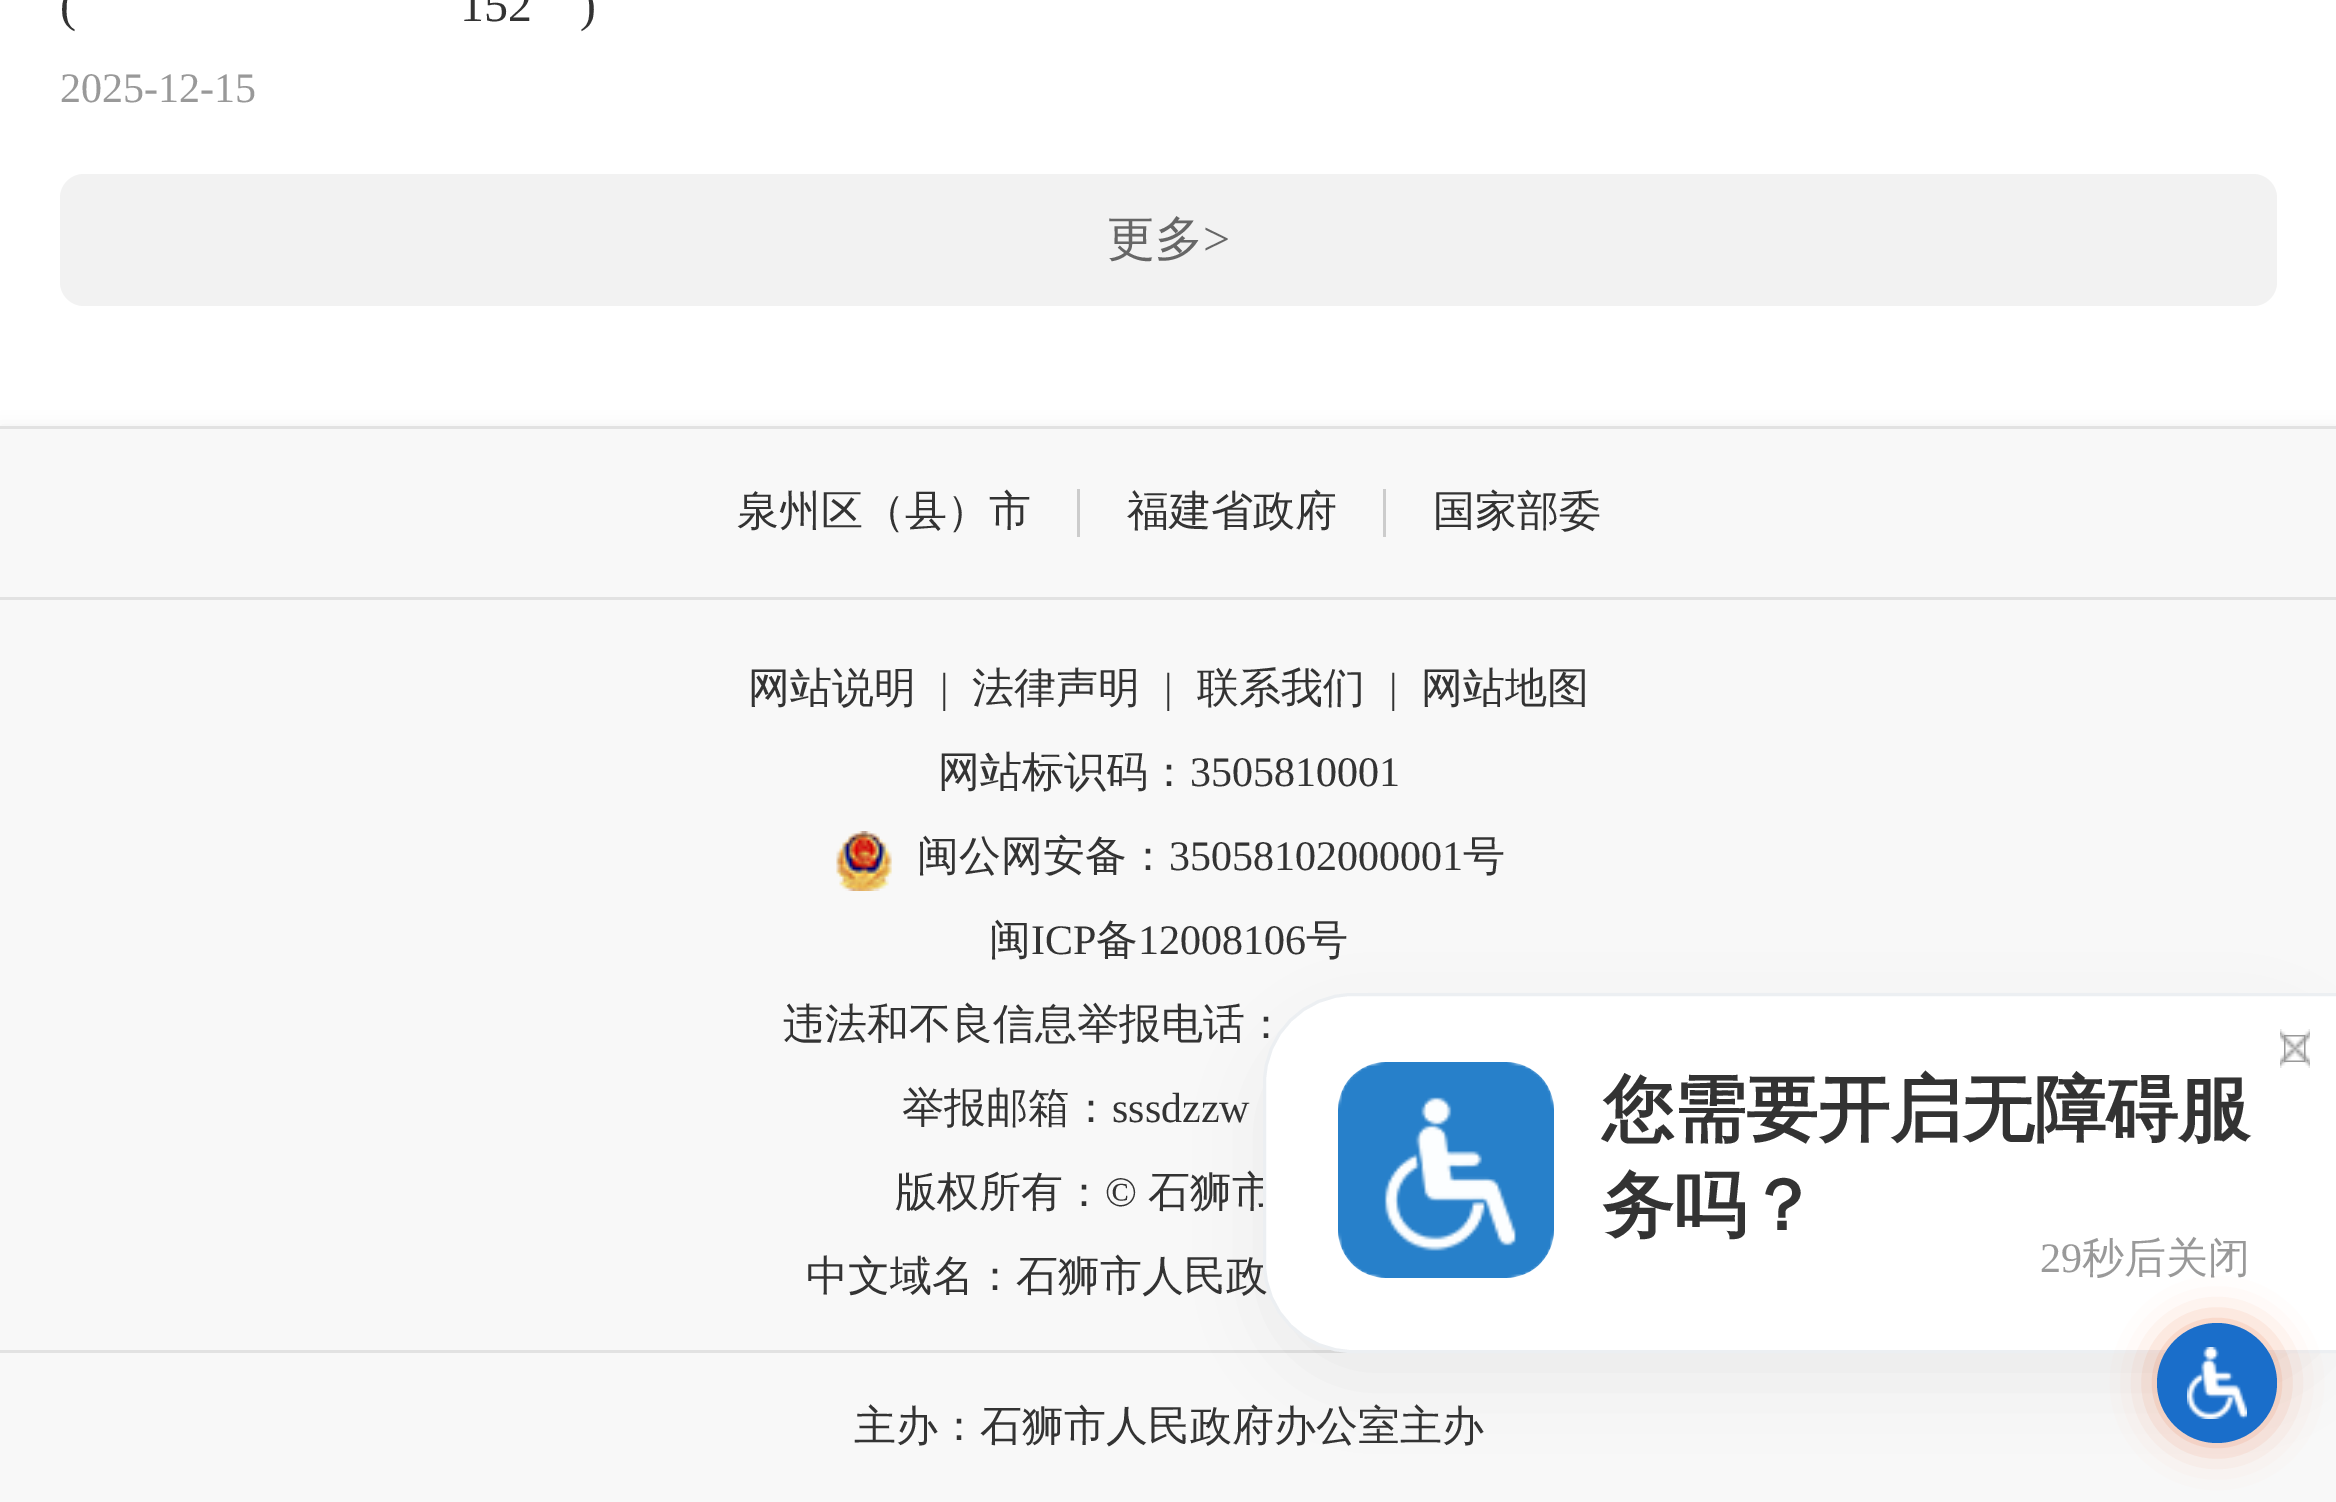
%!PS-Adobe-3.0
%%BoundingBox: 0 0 2336 1502
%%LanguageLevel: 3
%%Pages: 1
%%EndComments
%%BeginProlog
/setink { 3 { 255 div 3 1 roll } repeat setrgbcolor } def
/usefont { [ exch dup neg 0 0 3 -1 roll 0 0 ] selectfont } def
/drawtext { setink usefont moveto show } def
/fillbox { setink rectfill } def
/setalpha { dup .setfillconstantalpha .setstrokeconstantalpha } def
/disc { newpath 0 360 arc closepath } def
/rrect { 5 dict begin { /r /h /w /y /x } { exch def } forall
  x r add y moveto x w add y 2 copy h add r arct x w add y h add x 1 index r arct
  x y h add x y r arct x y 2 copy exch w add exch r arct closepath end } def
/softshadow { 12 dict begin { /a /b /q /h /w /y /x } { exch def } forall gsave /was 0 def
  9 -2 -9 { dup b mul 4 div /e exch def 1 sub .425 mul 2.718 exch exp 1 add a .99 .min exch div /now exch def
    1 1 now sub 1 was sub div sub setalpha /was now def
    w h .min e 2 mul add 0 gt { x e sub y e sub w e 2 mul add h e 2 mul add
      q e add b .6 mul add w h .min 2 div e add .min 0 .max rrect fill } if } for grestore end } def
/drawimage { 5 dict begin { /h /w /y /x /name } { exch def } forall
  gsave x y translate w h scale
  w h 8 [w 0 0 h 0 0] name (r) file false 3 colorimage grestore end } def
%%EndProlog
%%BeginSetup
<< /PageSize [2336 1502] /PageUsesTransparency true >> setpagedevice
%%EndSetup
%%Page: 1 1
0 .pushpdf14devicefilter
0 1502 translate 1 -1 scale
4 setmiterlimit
0 0 2336 1502 255 255 255 fillbox
(\() 60 21 /LiberationSerif-Regular 48 51 51 51 drawtext
(152) 460 21 /LiberationSerif-Regular 48 51 51 51 drawtext
(\)) 580 21 /LiberationSerif-Regular 48 51 51 51 drawtext
(2025-12-15) 60 102 /LiberationSerif-Regular 42 153 153 153 drawtext
242 242 242 setink
60 174 2217 132 24 rrect fill
(更多) 1107 255 /WenQuanYiZenHei-Medium 48 102 102 102 drawtext
(>) 1203 255 /LiberationSerif-Regular 48 102 102 102 drawtext
0 0 0 setink
0 426 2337 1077 0 9 0.05 softshadow
0 429 2336 1073 248 248 248 fillbox
0 426 2336 3 226 226 226 fillbox
(泉州区（县）市) 737 525 /WenQuanYiZenHei-Medium 42 51 51 51 drawtext
1077 489 3 48 204 204 204 fillbox
(福建省政府) 1127 525 /WenQuanYiZenHei-Medium 42 51 51 51 drawtext
1383 489 3 48 204 204 204 fillbox
(国家部委) 1433 525 /WenQuanYiZenHei-Medium 42 51 51 51 drawtext
0 597 2336 3 226 226 226 fillbox
(网站说明) 748 702 /WenQuanYiZenHei-Medium 42 51 51 51 drawtext
(|) 940 702 /LiberationSerif-Regular 42 51 51 51 drawtext
(法律声明) 972 702 /WenQuanYiZenHei-Medium 42 51 51 51 drawtext
(|) 1164 702 /LiberationSerif-Regular 42 51 51 51 drawtext
(联系我们) 1197 702 /WenQuanYiZenHei-Medium 42 51 51 51 drawtext
(|) 1389 702 /LiberationSerif-Regular 42 51 51 51 drawtext
(网站地图) 1421 702 /WenQuanYiZenHei-Medium 42 51 51 51 drawtext
(网站标识码：) 938 786 /WenQuanYiZenHei-Medium 42 51 51 51 drawtext
(3505810001) 1190 786 /LiberationSerif-Regular 42 51 51 51 drawtext
(assets/img1.rgb) 836 831 56 60 drawimage
(闽公网安备：) 917 870 /WenQuanYiZenHei-Medium 42 51 51 51 drawtext
(35058102000001) 1169 870 /LiberationSerif-Regular 42 51 51 51 drawtext
(号) 1463 870 /WenQuanYiZenHei-Medium 42 51 51 51 drawtext
(闽) 989 954 /WenQuanYiZenHei-Medium 42 51 51 51 drawtext
(ICP) 1031 954 /LiberationSerif-Regular 42 51 51 51 drawtext
(备) 1096 954 /WenQuanYiZenHei-Medium 42 51 51 51 drawtext
(12008106) 1138 954 /LiberationSerif-Regular 42 51 51 51 drawtext
(号) 1306 954 /WenQuanYiZenHei-Medium 42 51 51 51 drawtext
(违法和不良信息举报电话：) 783 1038 /WenQuanYiZenHei-Medium 42 51 51 51 drawtext
(举报邮箱：) 902 1122 /WenQuanYiZenHei-Medium 42 51 51 51 drawtext
(sssdzzw) 1112 1122 /LiberationSerif-Regular 42 51 51 51 drawtext
(版权所有：) 895 1206 /WenQuanYiZenHei-Medium 42 51 51 51 drawtext
(©) 1105 1206 /LiberationSerif-Regular 42 51 51 51 drawtext
(石狮市) 1148 1206 /WenQuanYiZenHei-Medium 42 51 51 51 drawtext
(中文域名：石狮市人民政) 806 1290 /WenQuanYiZenHei-Medium 42 51 51 51 drawtext
0 1350 1352 3 226 226 226 fillbox
(主办：石狮市人民政府办公室主办) 854 1440 /WenQuanYiZenHei-Medium 42 51 51 51 drawtext
4 4 4 setink
1263 1023 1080 360 90 40.5 0.05 softshadow
255 255 255 setink
1353 994.5 moveto 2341.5 994.5 lineto 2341.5 1351.5 lineto 1353 1351.5 lineto 1304 1351.5 1264.5 1312 1264.5 1263 curveto 1264.5 1083 lineto 1264.5 1034 1304 994.5 1353 994.5 curveto closepath gsave fill grestore
236 239 242 setink
3 setlinewidth
stroke
230 101 49 setink
2157 1323 120 120 60 21 0.5 softshadow
26 110 202 setink
2217 1383 60 disc fill
(assets/img2.rgb) 2187 1347 60 72 drawimage
(assets/img3.rgb) 2280 1029 30 39 drawimage
153 153 153 setink
2284 1035 moveto 2305.5 1035 lineto 2305.5 1062 lineto 2284 1062 lineto closepath 2285.5 1036.5 moveto 2285.5 1060.5 lineto 2304 1060.5 lineto 2304 1036.5 lineto closepath fill
(assets/img4.rgb) 1338 1062 216 216 drawimage
(您需要开启无障碍服) 1602 1134 /WenQuanYiZenHei-Bold 72 51 51 51 drawtext
(务吗？) 1602 1230 /WenQuanYiZenHei-Bold 72 51 51 51 drawtext
(29) 2040 1272 /LiberationSerif-Regular 42 153 153 153 drawtext
(秒后关闭) 2082 1272 /WenQuanYiZenHei-Medium 42 153 153 153 drawtext
.poppdf14devicefilter showpage
%%EOF
